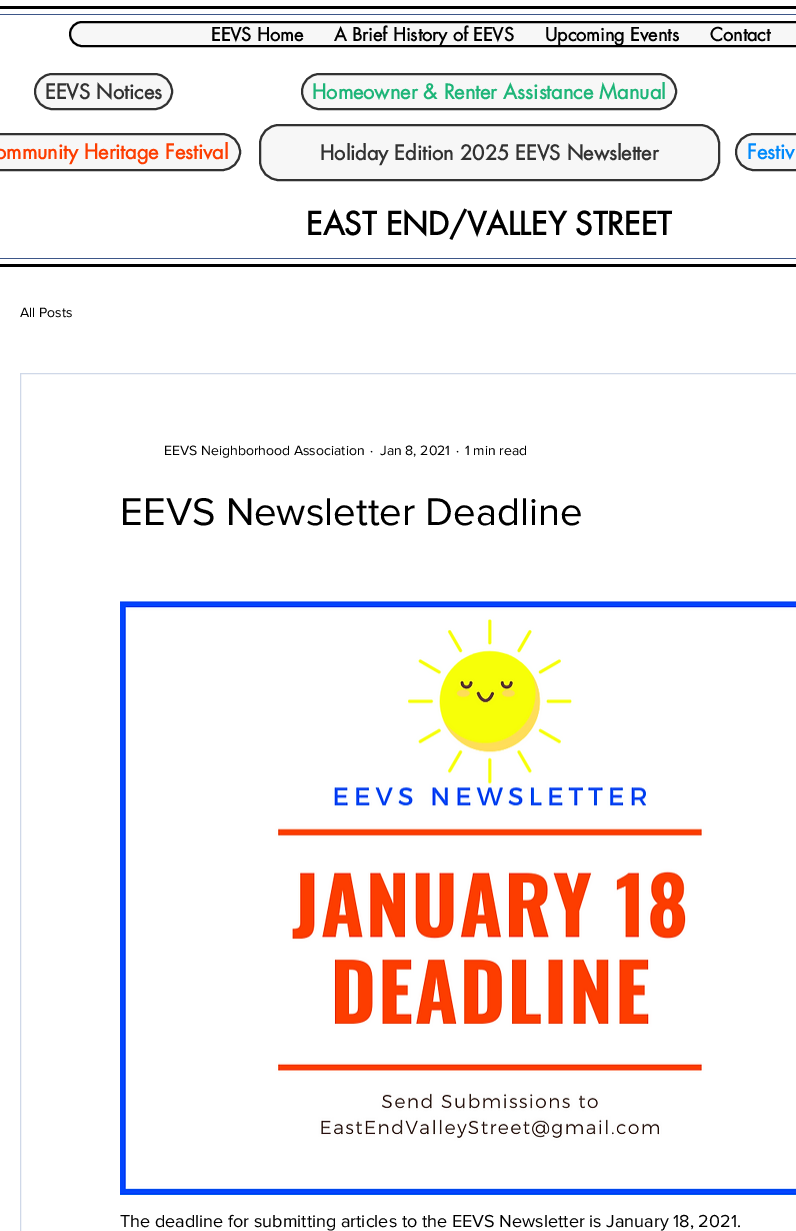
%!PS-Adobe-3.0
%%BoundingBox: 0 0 796 1231
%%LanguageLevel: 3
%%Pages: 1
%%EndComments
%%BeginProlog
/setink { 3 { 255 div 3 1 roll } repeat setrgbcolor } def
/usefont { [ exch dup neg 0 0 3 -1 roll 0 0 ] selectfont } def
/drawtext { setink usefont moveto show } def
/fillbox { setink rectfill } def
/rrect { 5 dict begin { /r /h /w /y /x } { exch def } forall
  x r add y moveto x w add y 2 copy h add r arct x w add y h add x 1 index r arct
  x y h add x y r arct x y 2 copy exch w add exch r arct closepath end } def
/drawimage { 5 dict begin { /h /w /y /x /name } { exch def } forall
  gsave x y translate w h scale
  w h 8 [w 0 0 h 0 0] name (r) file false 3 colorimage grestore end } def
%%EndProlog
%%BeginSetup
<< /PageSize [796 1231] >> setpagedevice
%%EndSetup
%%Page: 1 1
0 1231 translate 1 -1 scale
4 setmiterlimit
0 0 796 1231 255 255 255 fillbox
0 6 796 3 0 0 0 fillbox
0 264 796 3 0 0 0 fillbox
0 14 796 1 61 86 136 fillbox
0 258 796 1 61 86 136 fillbox
247 247 247 setink
70 22 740 24 12 rrect gsave fill grestore
0 0 0 setink
2 setlinewidth
stroke
(EEVS Home) 211 41 /futura-Bold 18 0 0 0 drawtext
(A Brief History of EEVS) 334 41 /futura-Bold 18 0 0 0 drawtext
(Upcoming Events) 545 41 /futura-Bold 18 0 0 0 drawtext
(Contact) 710 41 /futura-Bold 18 0 0 0 drawtext
247 247 247 setink
35 74 137 35 17.5 rrect gsave fill grestore
50 50 50 setink
stroke
(EEVS Notices) 45 99 /futura-Bold 20 50 50 50 drawtext
247 247 247 setink
302 74 374 35 17.5 rrect gsave fill grestore
50 50 50 setink
stroke
(Homeowner & Renter Assistance Manual) 312 99 /futura-Bold 20 29 181 120 drawtext
247 247 247 setink
-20 134 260 36 18 rrect gsave fill grestore
50 50 50 setink
stroke
(ommunity Heritage Festival) -5 159 /futura-Bold 20 253 61 0 drawtext
247 247 247 setink
260 125 459 55 19 rrect gsave fill grestore
50 50 50 setink
stroke
(Holiday Edition 2025 EEVS Newsletter) 320 160 /futura-Bold 20 50 50 50 drawtext
247 247 247 setink
736 134 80 36 18 rrect gsave fill grestore
50 50 50 setink
stroke
(Festiv) 747 159 /futura-Bold 20 0 138 252 drawtext
(EAST END/VALLEY STREET) 306 235 /futura-Bold 31 0 0 0 drawtext
(All Posts) 20 317 /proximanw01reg-Regular 14 0 0 0 drawtext
207 216 232 setink
1 setlinewidth
20.5 373.5 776 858 rectstroke
(EEVS Neighborhood Association) 164 455 /proximanw01reg-Regular 14 0 0 0 drawtext
(·) 370 455 /proximanw01reg-Regular 14 0 0 0 drawtext
(Jan 8, 2021) 380 455 /proximanw01reg-Regular 14 0 0 0 drawtext
(·) 456 455 /proximanw01reg-Regular 14 0 0 0 drawtext
(1 min read) 465 455 /proximanw01reg-Regular 14 0 0 0 drawtext
(EEVS Newsletter Deadline) 120 525 /proximanw01reg-Regular 40 0 0 0 drawtext
(assets/img1.rgb) 120 601 676 594 drawimage
(The deadline for submitting articles to the EEVS Newsletter is January 18, 2021.) 120 1227 /proximanw01reg-Regular 18 0 0 0 drawtext
showpage
%%EOF
